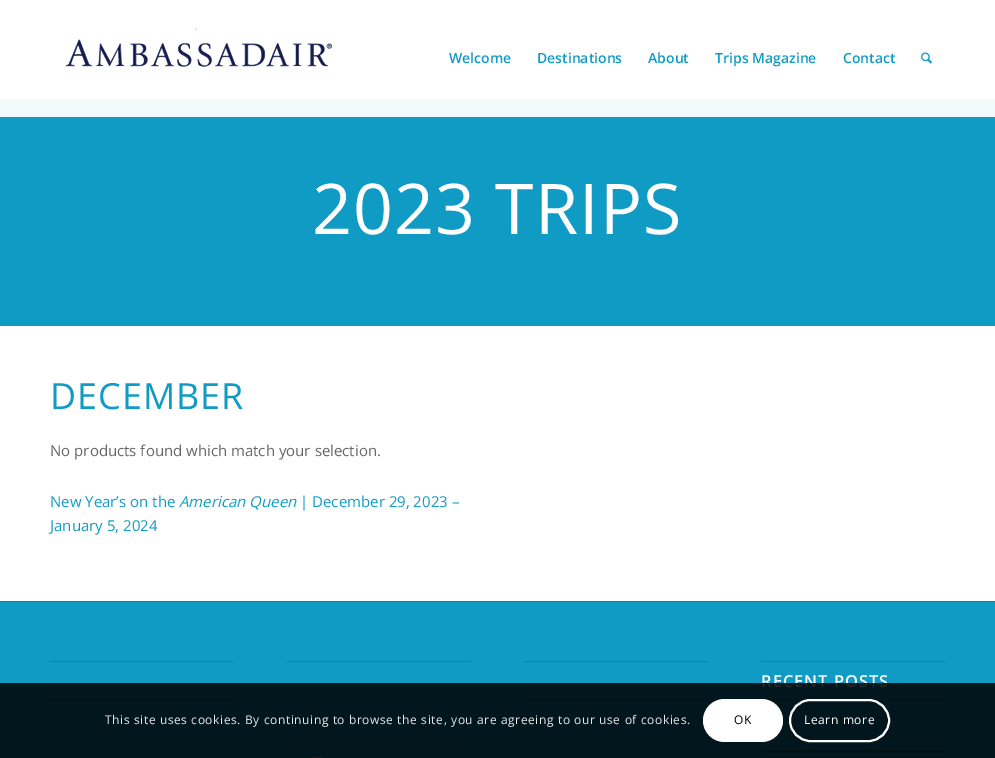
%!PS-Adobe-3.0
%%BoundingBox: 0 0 995 758
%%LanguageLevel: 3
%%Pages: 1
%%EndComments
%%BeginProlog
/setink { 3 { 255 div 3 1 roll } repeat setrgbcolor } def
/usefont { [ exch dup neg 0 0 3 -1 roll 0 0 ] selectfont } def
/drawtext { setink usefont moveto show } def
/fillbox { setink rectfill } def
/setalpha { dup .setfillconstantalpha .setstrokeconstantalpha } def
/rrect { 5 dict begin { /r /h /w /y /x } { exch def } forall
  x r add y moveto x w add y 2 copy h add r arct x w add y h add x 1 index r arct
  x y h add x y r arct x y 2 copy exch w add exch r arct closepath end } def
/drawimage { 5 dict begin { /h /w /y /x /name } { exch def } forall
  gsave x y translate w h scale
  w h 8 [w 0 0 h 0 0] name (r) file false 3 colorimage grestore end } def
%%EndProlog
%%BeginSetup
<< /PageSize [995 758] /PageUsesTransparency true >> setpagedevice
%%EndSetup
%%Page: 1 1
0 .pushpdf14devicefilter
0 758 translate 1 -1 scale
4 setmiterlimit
0 0 995 758 255 255 255 fillbox
(assets/img1.rgb) 66 28 266 39 drawimage
(Welcome) 449 63 /OpenSans-SemiBold 14 16 155 197 drawtext
(Destinations) 537 63 /OpenSans-SemiBold 14 16 155 197 drawtext
(About) 648 63 /OpenSans-SemiBold 14 16 155 197 drawtext
(Trips Magazine) 715 63 /OpenSans-SemiBold 14 16 155 197 drawtext
(Contact) 843 63 /OpenSans-SemiBold 14 16 155 197 drawtext
(assets/img2.rgb) 921 52 11 12 drawimage
0 117 995 209 16 155 197 fillbox
0 99 995 18 243 250 252 fillbox
/OpenSans-Regular 70 usefont
255 255 255 setink
312 234 moveto 1 0 (2023 TRIPS) ashow
/OpenSans-Regular 36 usefont
16 155 197 setink
50 409 moveto 1 0 (DECEMBER) ashow
(No products found which match your selection.) 50 456 /OpenSans-Regular 15 102 102 102 drawtext
(New Year’s on the) 50 507 /OpenSans-Regular 15 16 155 197 drawtext
(American Queen) 179 507 /OpenSans-Italic 15 16 155 197 drawtext
(| December 29, 2023 –) 300 507 /OpenSans-Regular 15 16 155 197 drawtext
(January 5, 2024) 50 531 /OpenSans-Regular 15 16 155 197 drawtext
0 602 995 156 16 155 197 fillbox
0 601 995 1 15 129 161 fillbox
50 661 183 1 15 129 161 fillbox
50 700 183 1 15 129 161 fillbox
287 661 184 1 15 129 161 fillbox
287 736 184 1 15 129 161 fillbox
(assets/img3.rgb) 310 756 13 2 drawimage
524 661 184 1 15 129 161 fillbox
524 700 184 1 15 129 161 fillbox
761 661 184 1 15 129 161 fillbox
761 700 184 1 15 129 161 fillbox
/OpenSans-SemiBold 16.5 usefont
255 255 255 setink
761 687 moveto 1 0 (RECENT POSTS) ashow
761 750 184 3 15 129 161 fillbox
0.85 setalpha
0 683 995 75 0 0 0 fillbox
/OpenSans-Regular 12 usefont
1 setalpha
230 232 233 setink
105 724 moveto 0.6 0 (This site uses cookies. By continuing to browse the site, you are agreeing to our use of cookies.) ashow
255 255 255 setink
703 699 80 43 21.5 rrect fill
0 0 0 setink
734 724 moveto 0.6 0 (OK) ashow
255 255 255 setink
2 setlinewidth
790 700 99 41 20.5 rrect stroke
804 724 moveto 0.6 0 (Learn more) ashow
.poppdf14devicefilter showpage
%%EOF
